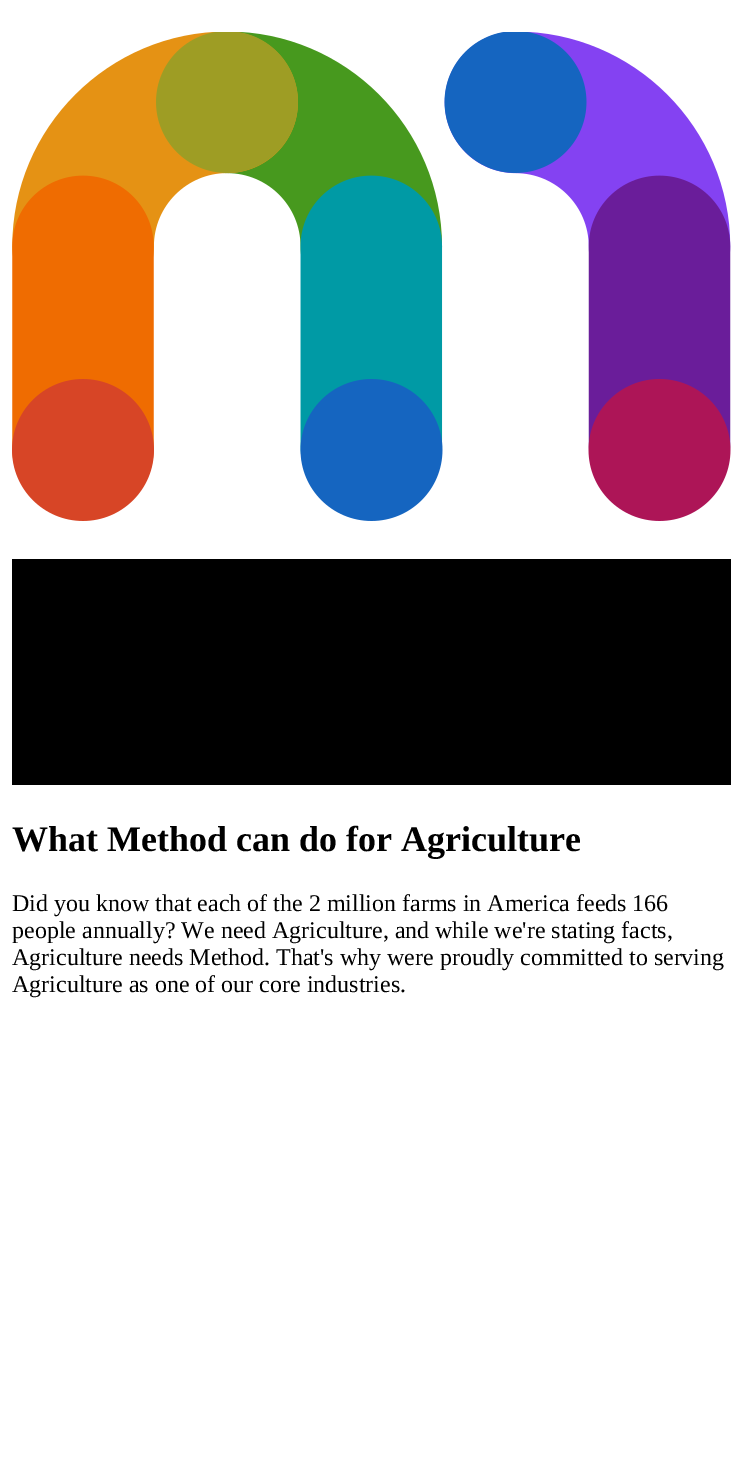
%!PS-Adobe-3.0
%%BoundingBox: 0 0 742 1467
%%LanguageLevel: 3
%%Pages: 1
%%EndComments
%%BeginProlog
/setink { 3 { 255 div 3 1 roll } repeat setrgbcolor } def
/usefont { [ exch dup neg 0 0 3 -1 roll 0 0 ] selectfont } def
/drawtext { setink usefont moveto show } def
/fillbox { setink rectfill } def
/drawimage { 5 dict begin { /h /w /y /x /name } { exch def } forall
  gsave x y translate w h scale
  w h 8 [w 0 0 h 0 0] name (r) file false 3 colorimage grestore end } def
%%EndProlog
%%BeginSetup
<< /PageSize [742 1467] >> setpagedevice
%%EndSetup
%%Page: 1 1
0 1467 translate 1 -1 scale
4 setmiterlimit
0 0 742 1467 255 255 255 fillbox
(assets/img1.rgb) 12 32 719 489 drawimage
12 559 719 226 0 0 0 fillbox
(What Method can do for Agriculture) 12 851 /LiberationSerif-Bold 36 0 0 0 drawtext
(Did you know that each of the 2 million farms in America feeds 166) 12 911 /LiberationSerif-Regular 24 0 0 0 drawtext
(people annually? We need Agriculture, and while we're stating facts,) 12 938 /LiberationSerif-Regular 24 0 0 0 drawtext
(Agriculture needs Method. That's why were proudly committed to serving) 12 965 /LiberationSerif-Regular 24 0 0 0 drawtext
(Agriculture as one of our core industries.) 12 992 /LiberationSerif-Regular 24 0 0 0 drawtext
showpage
%%EOF
